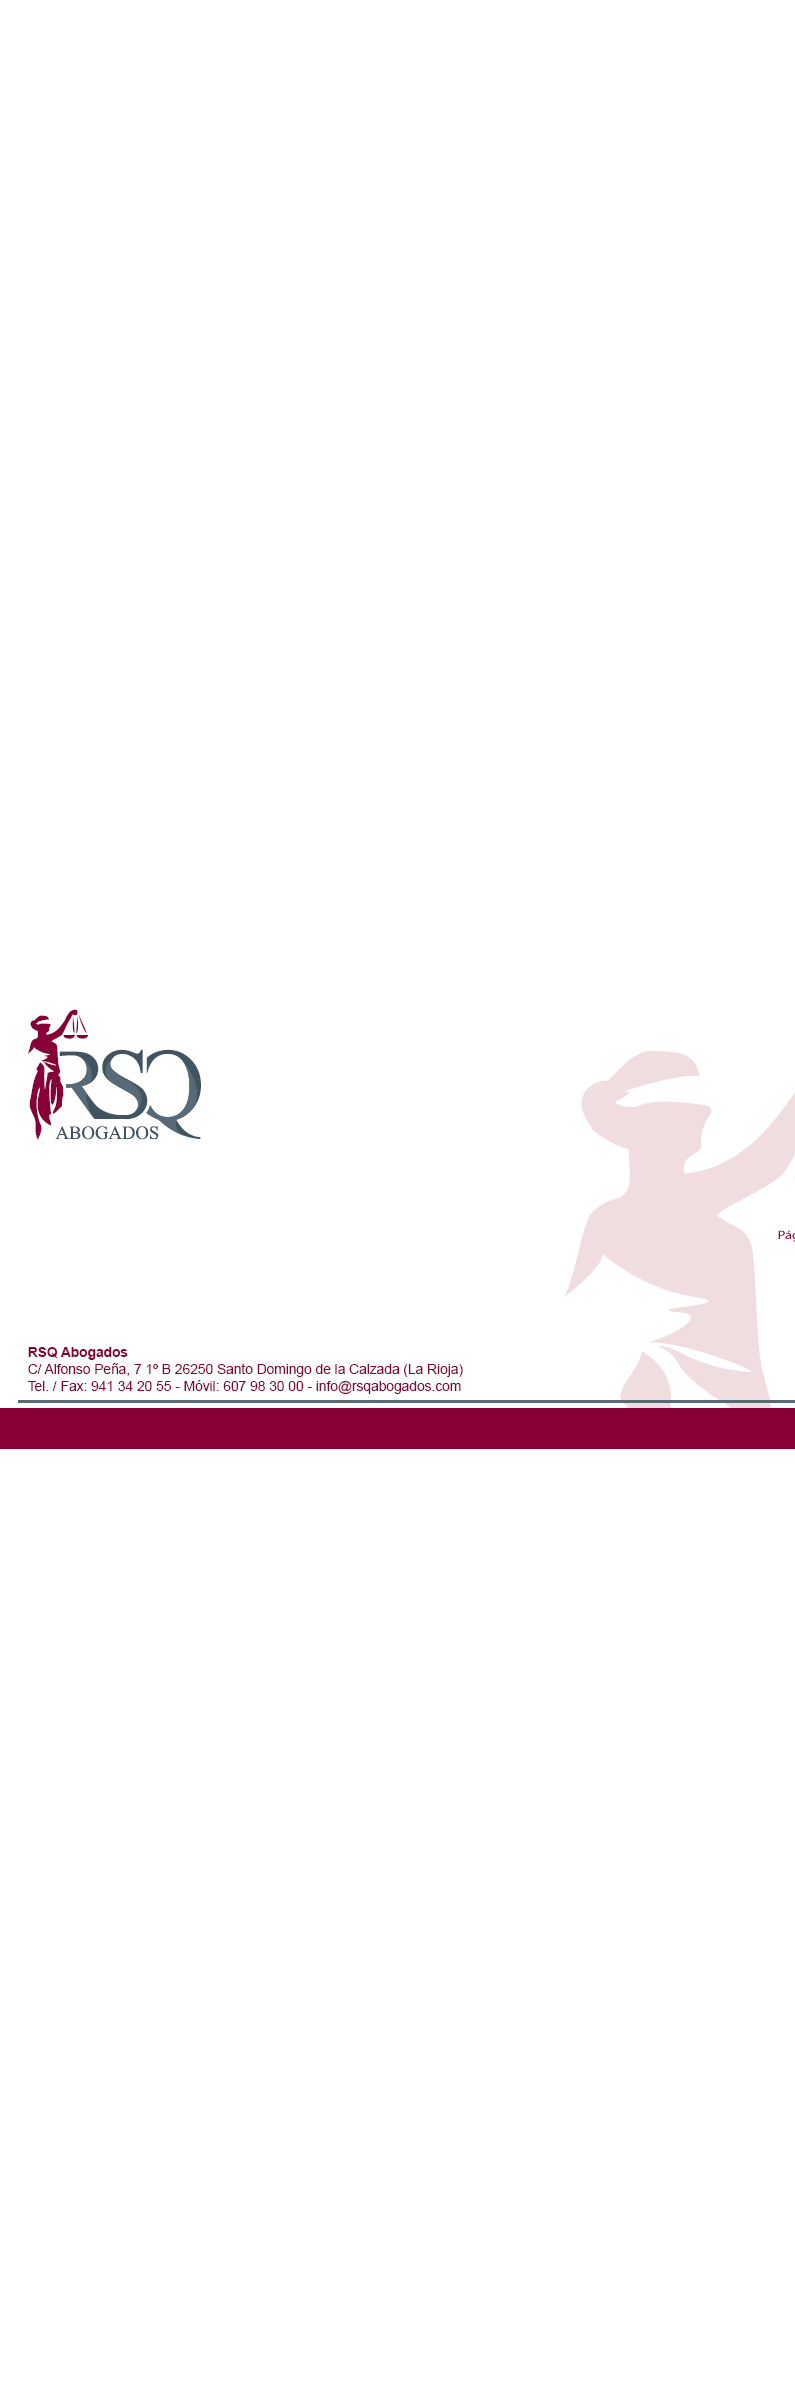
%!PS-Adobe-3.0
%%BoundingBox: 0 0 795 2402
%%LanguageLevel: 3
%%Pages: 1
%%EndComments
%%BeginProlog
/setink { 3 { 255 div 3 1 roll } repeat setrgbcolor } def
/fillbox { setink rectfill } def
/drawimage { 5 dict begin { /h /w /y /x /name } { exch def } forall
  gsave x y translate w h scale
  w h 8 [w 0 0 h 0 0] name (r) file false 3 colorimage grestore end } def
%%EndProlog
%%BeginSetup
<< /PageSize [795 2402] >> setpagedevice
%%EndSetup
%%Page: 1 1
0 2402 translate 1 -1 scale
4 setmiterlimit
0 0 795 2402 255 255 255 fillbox
(assets/img1.rgb) 0 1009 795 440 drawimage
showpage
%%EOF
